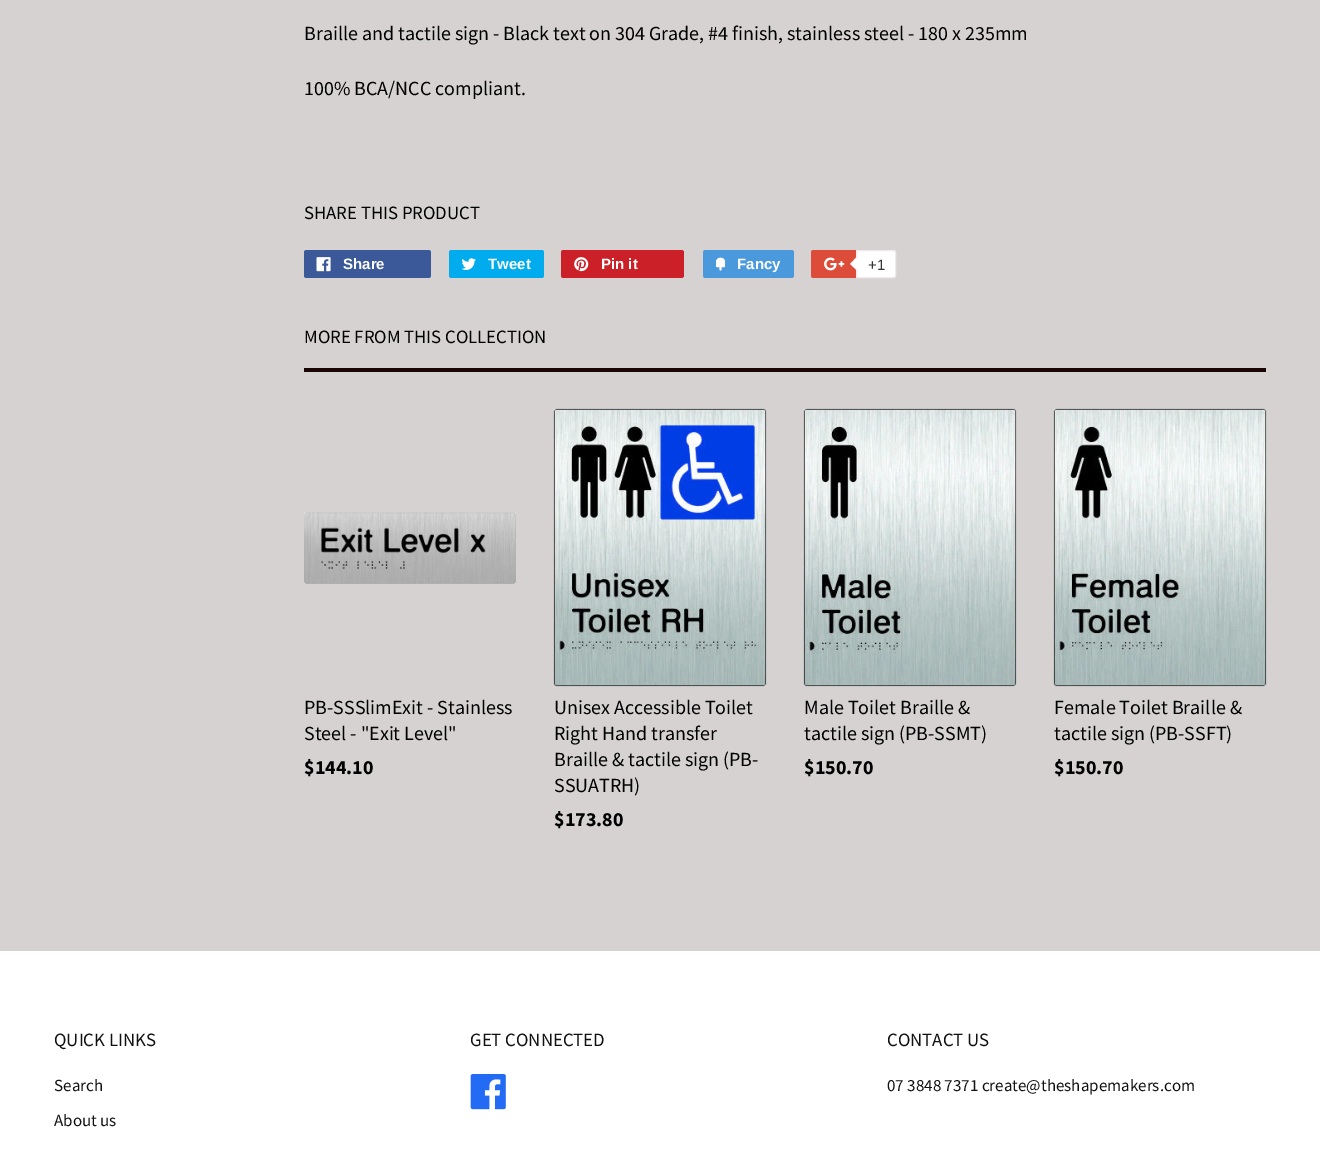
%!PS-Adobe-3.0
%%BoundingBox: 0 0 1320 1149
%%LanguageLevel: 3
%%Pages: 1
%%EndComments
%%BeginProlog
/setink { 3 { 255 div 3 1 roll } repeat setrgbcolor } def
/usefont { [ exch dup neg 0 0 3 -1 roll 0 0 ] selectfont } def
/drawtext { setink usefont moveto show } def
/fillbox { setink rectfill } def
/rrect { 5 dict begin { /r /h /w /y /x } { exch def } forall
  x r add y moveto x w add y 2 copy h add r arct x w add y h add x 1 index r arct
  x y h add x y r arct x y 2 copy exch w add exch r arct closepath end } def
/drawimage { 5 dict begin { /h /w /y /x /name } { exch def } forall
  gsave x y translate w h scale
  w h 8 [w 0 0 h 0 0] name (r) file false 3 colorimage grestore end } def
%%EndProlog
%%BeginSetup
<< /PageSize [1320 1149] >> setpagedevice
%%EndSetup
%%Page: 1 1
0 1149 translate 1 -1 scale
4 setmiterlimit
0 0 1320 1149 214 210 210 fillbox
(Braille and tactile sign - Black text on 304 Grade, #4 finish, stainless steel - 180 x 235mm) 304 40 /SourceSansPro-Regular 20 0 0 0 drawtext
(100% BCA/NCC compliant.) 304 95 /SourceSansPro-Regular 20 0 0 0 drawtext
(SHARE THIS PRODUCT) 304 219 /SourceSansPro-Regular 18.75 0 0 0 drawtext
59 89 152 setink
304 250 127 28 2.5 rrect fill
(assets/img1.rgb) 316 257 15 15 drawimage
(Share) 343 269 /LiberationSans-Bold 15 255 255 255 drawtext
0 172 237 setink
449 250 95 28 2.5 rrect fill
(assets/img2.rgb) 461 258 15 12 drawimage
(Tweet) 488 269 /LiberationSans-Bold 15 255 255 255 drawtext
203 32 39 setink
561 250 123 28 2.5 rrect fill
(assets/img3.rgb) 574 257 15 15 drawimage
(Pin it) 601 269 /LiberationSans-Bold 15 255 255 255 drawtext
73 153 220 setink
703 250 91 28 2.5 rrect fill
(assets/img4.rgb) 716 257 10 14 drawimage
(Fancy) 737 269 /LiberationSans-Bold 15 255 255 255 drawtext
221 75 57 setink
811 250 83 28 2.5 rrect fill
(assets/img5.rgb) 824 257 21 14 drawimage
255 255 255 setink
856.5 250.5 moveto 893.5 250.5 lineto 894.5 250.5 895.5 251.5 895.5 252.5 curveto 895.5 275.5 lineto 895.5 276.5 894.5 277.5 893.5 277.5 curveto 856.5 277.5 lineto closepath gsave fill grestore
236 236 236 setink
stroke
857.5 256 moveto 857.5 271 lineto 850 264 lineto closepath fill
255 255 255 setink
859 256 moveto 859 271 lineto 851 264 lineto closepath fill
(+1) 868 270 /LiberationSans-Regular 15 51 51 51 drawtext
304 368 962 4 26 4 4 fillbox
(MORE FROM THIS COLLECTION) 304 343 /SourceSansPro-Regular 18.75 0 0 0 drawtext
(assets/img6.rgb) 304 512 212 72 drawimage
(PB-SSSlimExit - Stainless) 304 714 /SourceSansPro-Regular 20 0 0 0 drawtext
(Steel - "Exit Level") 304 740 /SourceSansPro-Regular 20 0 0 0 drawtext
($144.10) 304 774 /SourceSansPro-Bold 20 0 0 0 drawtext
(assets/img7.rgb) 553 408 214 279 drawimage
(Unisex Accessible Toilet) 554 714 /SourceSansPro-Regular 20 0 0 0 drawtext
(Right Hand transfer) 554 740 /SourceSansPro-Regular 20 0 0 0 drawtext
(Braille & tactile sign \(PB-) 554 766 /SourceSansPro-Regular 20 0 0 0 drawtext
(SSUATRH\)) 554 792 /SourceSansPro-Regular 20 0 0 0 drawtext
($173.80) 554 826 /SourceSansPro-Bold 20 0 0 0 drawtext
(assets/img8.rgb) 803 408 214 279 drawimage
(Male Toilet Braille &) 804 714 /SourceSansPro-Regular 20 0 0 0 drawtext
(tactile sign \(PB-SSMT\)) 804 740 /SourceSansPro-Regular 20 0 0 0 drawtext
($150.70) 804 774 /SourceSansPro-Bold 20 0 0 0 drawtext
(assets/img9.rgb) 1053 408 214 279 drawimage
(Female Toilet Braille &) 1054 714 /SourceSansPro-Regular 20 0 0 0 drawtext
(tactile sign \(PB-SSFT\)) 1054 740 /SourceSansPro-Regular 20 0 0 0 drawtext
($150.70) 1054 774 /SourceSansPro-Bold 20 0 0 0 drawtext
0 951 1320 198 255 255 255 fillbox
(QUICK LINKS) 54 1046 /SourceSansPro-Regular 18.75 17 17 17 drawtext
(Search) 54 1091 /SourceSansPro-Regular 17 17 17 17 drawtext
(About us) 54 1126 /SourceSansPro-Regular 17 17 17 17 drawtext
(GET CONNECTED) 470 1046 /SourceSansPro-Regular 18.75 17 17 17 drawtext
(assets/img10.rgb) 470 1074 36 36 drawimage
(CONTACT US) 887 1046 /SourceSansPro-Regular 18.75 17 17 17 drawtext
(07 3848 7371 create@theshapemakers.com) 887 1091 /SourceSansPro-Regular 17 17 17 17 drawtext
showpage
%%EOF
